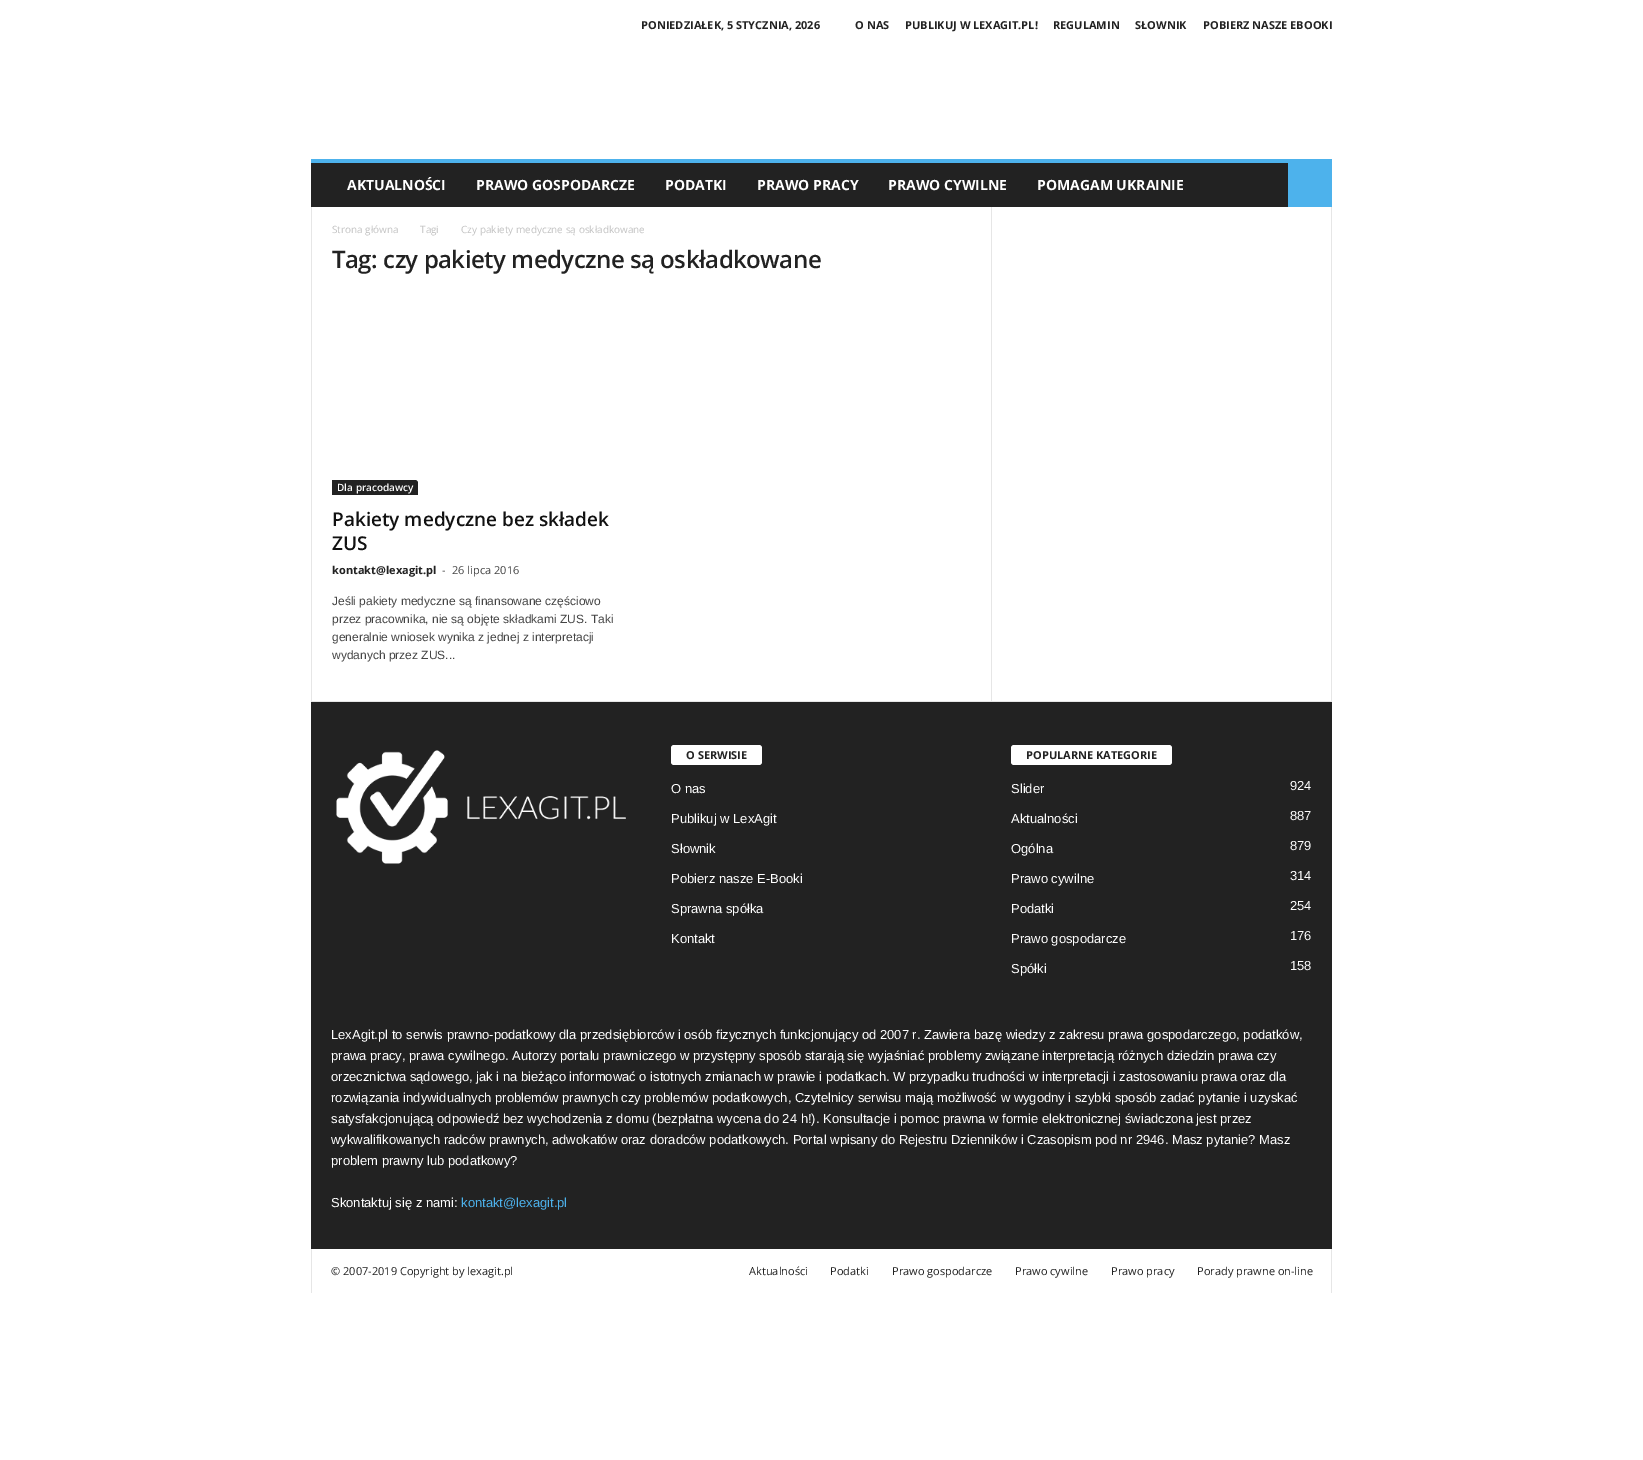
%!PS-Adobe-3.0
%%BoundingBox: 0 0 1643 1460
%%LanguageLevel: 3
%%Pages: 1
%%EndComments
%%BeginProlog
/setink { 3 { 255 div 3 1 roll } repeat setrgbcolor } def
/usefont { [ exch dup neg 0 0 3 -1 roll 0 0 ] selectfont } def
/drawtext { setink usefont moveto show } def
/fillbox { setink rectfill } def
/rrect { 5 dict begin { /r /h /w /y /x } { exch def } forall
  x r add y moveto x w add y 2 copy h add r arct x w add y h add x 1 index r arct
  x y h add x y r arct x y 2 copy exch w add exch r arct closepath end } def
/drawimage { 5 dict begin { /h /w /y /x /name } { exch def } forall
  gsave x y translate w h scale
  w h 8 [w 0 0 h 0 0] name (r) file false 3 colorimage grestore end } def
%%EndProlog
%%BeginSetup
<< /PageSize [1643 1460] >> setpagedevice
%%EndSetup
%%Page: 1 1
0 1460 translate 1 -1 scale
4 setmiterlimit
0 0 1643 1460 255 255 255 fillbox
(PONIEDZIAŁEK, 5 STYCZNIA, 2026) 641 29 /OpenSans-Bold 11 34 34 34 drawtext
(O NAS) 855 29 /OpenSans-Bold 11 34 34 34 drawtext
(PUBLIKUJ W LEXAGIT.PL!) 905 29 /OpenSans-Bold 11 34 34 34 drawtext
(REGULAMIN) 1053 29 /OpenSans-Bold 11 34 34 34 drawtext
(SŁOWNIK) 1135 29 /OpenSans-Bold 11 34 34 34 drawtext
(POBIERZ NASZE EBOOKI) 1203 29 /OpenSans-Bold 11 34 34 34 drawtext
311 163 977 44 34 34 34 fillbox
311 159 1021 4 77 178 236 fillbox
(AKTUALNOŚCI) 347 190 /OpenSans-Bold 14 255 255 255 drawtext
(PRAWO GOSPODARCZE) 476 190 /OpenSans-Bold 14 255 255 255 drawtext
(PODATKI) 665 190 /OpenSans-Bold 14 255 255 255 drawtext
(PRAWO PRACY) 757 190 /OpenSans-Bold 14 255 255 255 drawtext
(PRAWO CYWILNE) 888 190 /OpenSans-Bold 14 255 255 255 drawtext
(POMAGAM UKRAINIE) 1037 190 /OpenSans-Bold 14 255 255 255 drawtext
1288 163 44 44 77 178 236 fillbox
311 701 1021 1 230 230 230 fillbox
311 207 1 494 230 230 230 fillbox
(Strona główna) 332 233 /OpenSans-Regular 10 195 195 195 drawtext
(Tagi) 420 233 /OpenSans-Regular 10 195 195 195 drawtext
(Czy pakiety medyczne są oskładkowane) 461 233 /OpenSans-Regular 10 195 195 195 drawtext
/OpenSans-SemiBold 24 usefont
34 34 34 setink
332 268 moveto -0.5 0 (Tag: czy pakiety medyczne są oskładkowane) ashow
332 480 moveto 415 480 lineto 416.5 480 418 481.5 418 483 curveto 418 495 lineto 332 495 lineto closepath fill
(Dla pracodawcy) 337 491 /OpenSans-SemiBold 10 255 255 255 drawtext
(Pakiety medyczne bez składek) 332 526 /OpenSans-SemiBold 19 17 17 17 drawtext
(ZUS) 332 550 /OpenSans-SemiBold 19 17 17 17 drawtext
(kontakt@lexagit.pl) 332 574 /OpenSans-Bold 11 34 34 34 drawtext
(-) 442 574 /OpenSans-Regular 11 68 68 68 drawtext
(26 lipca 2016) 452 574 /OpenSans-Regular 11 68 68 68 drawtext
(Jeśli pakiety medyczne są finansowane częściowo) 332 605 /LiberationSans-Regular 12 68 68 68 drawtext
(przez pracownika, nie są objęte składkami ZUS. Taki) 332 623 /LiberationSans-Regular 12 68 68 68 drawtext
(generalnie wniosek wynika z jednej z interpretacji) 332 641 /LiberationSans-Regular 12 68 68 68 drawtext
(wydanych przez ZUS...) 332 659 /LiberationSans-Regular 12 68 68 68 drawtext
991 207 1 494 230 230 230 fillbox
1331 207 1 494 230 230 230 fillbox
311 702 1021 547 34 34 34 fillbox
(assets/img1.rgb) 336 750 290 114 drawimage
255 255 255 setink
671 745 91 20 3 rrect fill
(O SERWISIE) 686 759 /OpenSans-Bold 11 34 34 34 drawtext
(O nas) 671 793 /LiberationSans-Regular 13 255 255 255 drawtext
(Publikuj w LexAgit) 671 823 /LiberationSans-Regular 13 255 255 255 drawtext
(Słownik) 671 853 /LiberationSans-Regular 13 255 255 255 drawtext
(Pobierz nasze E-Booki) 671 883 /LiberationSans-Regular 13 255 255 255 drawtext
(Sprawna spółka) 671 913 /LiberationSans-Regular 13 255 255 255 drawtext
(Kontakt) 671 943 /LiberationSans-Regular 13 255 255 255 drawtext
1011 745 161 20 3 rrect fill
(POPULARNE KATEGORIE) 1026 759 /OpenSans-Bold 11 34 34 34 drawtext
(Slider) 1011 793 /LiberationSans-Regular 13 255 255 255 drawtext
(924) 1290 790 /LiberationSans-Regular 13 255 255 255 drawtext
(Aktualności) 1011 823 /LiberationSans-Regular 13 255 255 255 drawtext
(887) 1290 820 /LiberationSans-Regular 13 255 255 255 drawtext
(Ogólna) 1011 853 /LiberationSans-Regular 13 255 255 255 drawtext
(879) 1290 850 /LiberationSans-Regular 13 255 255 255 drawtext
(Prawo cywilne) 1011 883 /LiberationSans-Regular 13 255 255 255 drawtext
(314) 1290 880 /LiberationSans-Regular 13 255 255 255 drawtext
(Podatki) 1011 913 /LiberationSans-Regular 13 255 255 255 drawtext
(254) 1290 910 /LiberationSans-Regular 13 255 255 255 drawtext
(Prawo gospodarcze) 1011 943 /LiberationSans-Regular 13 255 255 255 drawtext
(176) 1290 940 /LiberationSans-Regular 13 255 255 255 drawtext
(Spółki) 1011 973 /LiberationSans-Regular 13 255 255 255 drawtext
(158) 1290 970 /LiberationSans-Regular 13 255 255 255 drawtext
(LexAgit.pl to serwis prawno-podatkowy dla przedsiębiorców i osób fizycznych funkcjonujący od 2007 r. Zawiera bazę wiedzy z zakresu prawa gospodarczego, podatków,) 331 1039 /LiberationSans-Regular 13 255 255 255 drawtext
(prawa pracy, prawa cywilnego. Autorzy portalu prawniczego w przystępny sposób starają się wyjaśniać problemy związane interpretacją różnych dziedzin prawa czy) 331 1060 /LiberationSans-Regular 13 255 255 255 drawtext
(orzecznictwa sądowego, jak i na bieżąco informować o istotnych zmianach w prawie i podatkach. W przypadku trudności w interpretacji i zastosowaniu prawa oraz dla) 331 1081 /LiberationSans-Regular 13 255 255 255 drawtext
(rozwiązania indywidualnych problemów prawnych czy problemów podatkowych, Czytelnicy serwisu mają możliwość w wygodny i szybki sposób zadać pytanie i uzyskać) 331 1102 /LiberationSans-Regular 13 255 255 255 drawtext
(satysfakcjonującą odpowiedź bez wychodzenia z domu \(bezpłatna wycena do 24 h!\). Konsultacje i pomoc prawna w formie elektronicznej świadczona jest przez) 331 1123 /LiberationSans-Regular 13 255 255 255 drawtext
(wykwalifikowanych radców prawnych, adwokatów oraz doradców podatkowych. Portal wpisany do Rejestru Dzienników i Czasopism pod nr 2946. Masz pytanie? Masz) 331 1144 /LiberationSans-Regular 13 255 255 255 drawtext
(problem prawny lub podatkowy?) 331 1165 /LiberationSans-Regular 13 255 255 255 drawtext
(Skontaktuj się z nami:) 331 1207 /LiberationSans-Regular 13 255 255 255 drawtext
(kontakt@lexagit.pl) 461 1207 /LiberationSans-Regular 13 77 178 236 drawtext
311 1249 1 44 230 230 230 fillbox
(© 2007-2019 Copyright by lexagit.pl) 331 1275 /OpenSans-Regular 11 34 34 34 drawtext
(Aktualności) 749 1275 /OpenSans-Regular 11 34 34 34 drawtext
(Podatki) 830 1275 /OpenSans-Regular 11 34 34 34 drawtext
(Prawo gospodarcze) 892 1275 /OpenSans-Regular 11 34 34 34 drawtext
(Prawo cywilne) 1015 1275 /OpenSans-Regular 11 34 34 34 drawtext
(Prawo pracy) 1111 1275 /OpenSans-Regular 11 34 34 34 drawtext
(Porady prawne on-line) 1197 1275 /OpenSans-Regular 11 34 34 34 drawtext
1331 1249 1 44 230 230 230 fillbox
showpage
%%EOF
